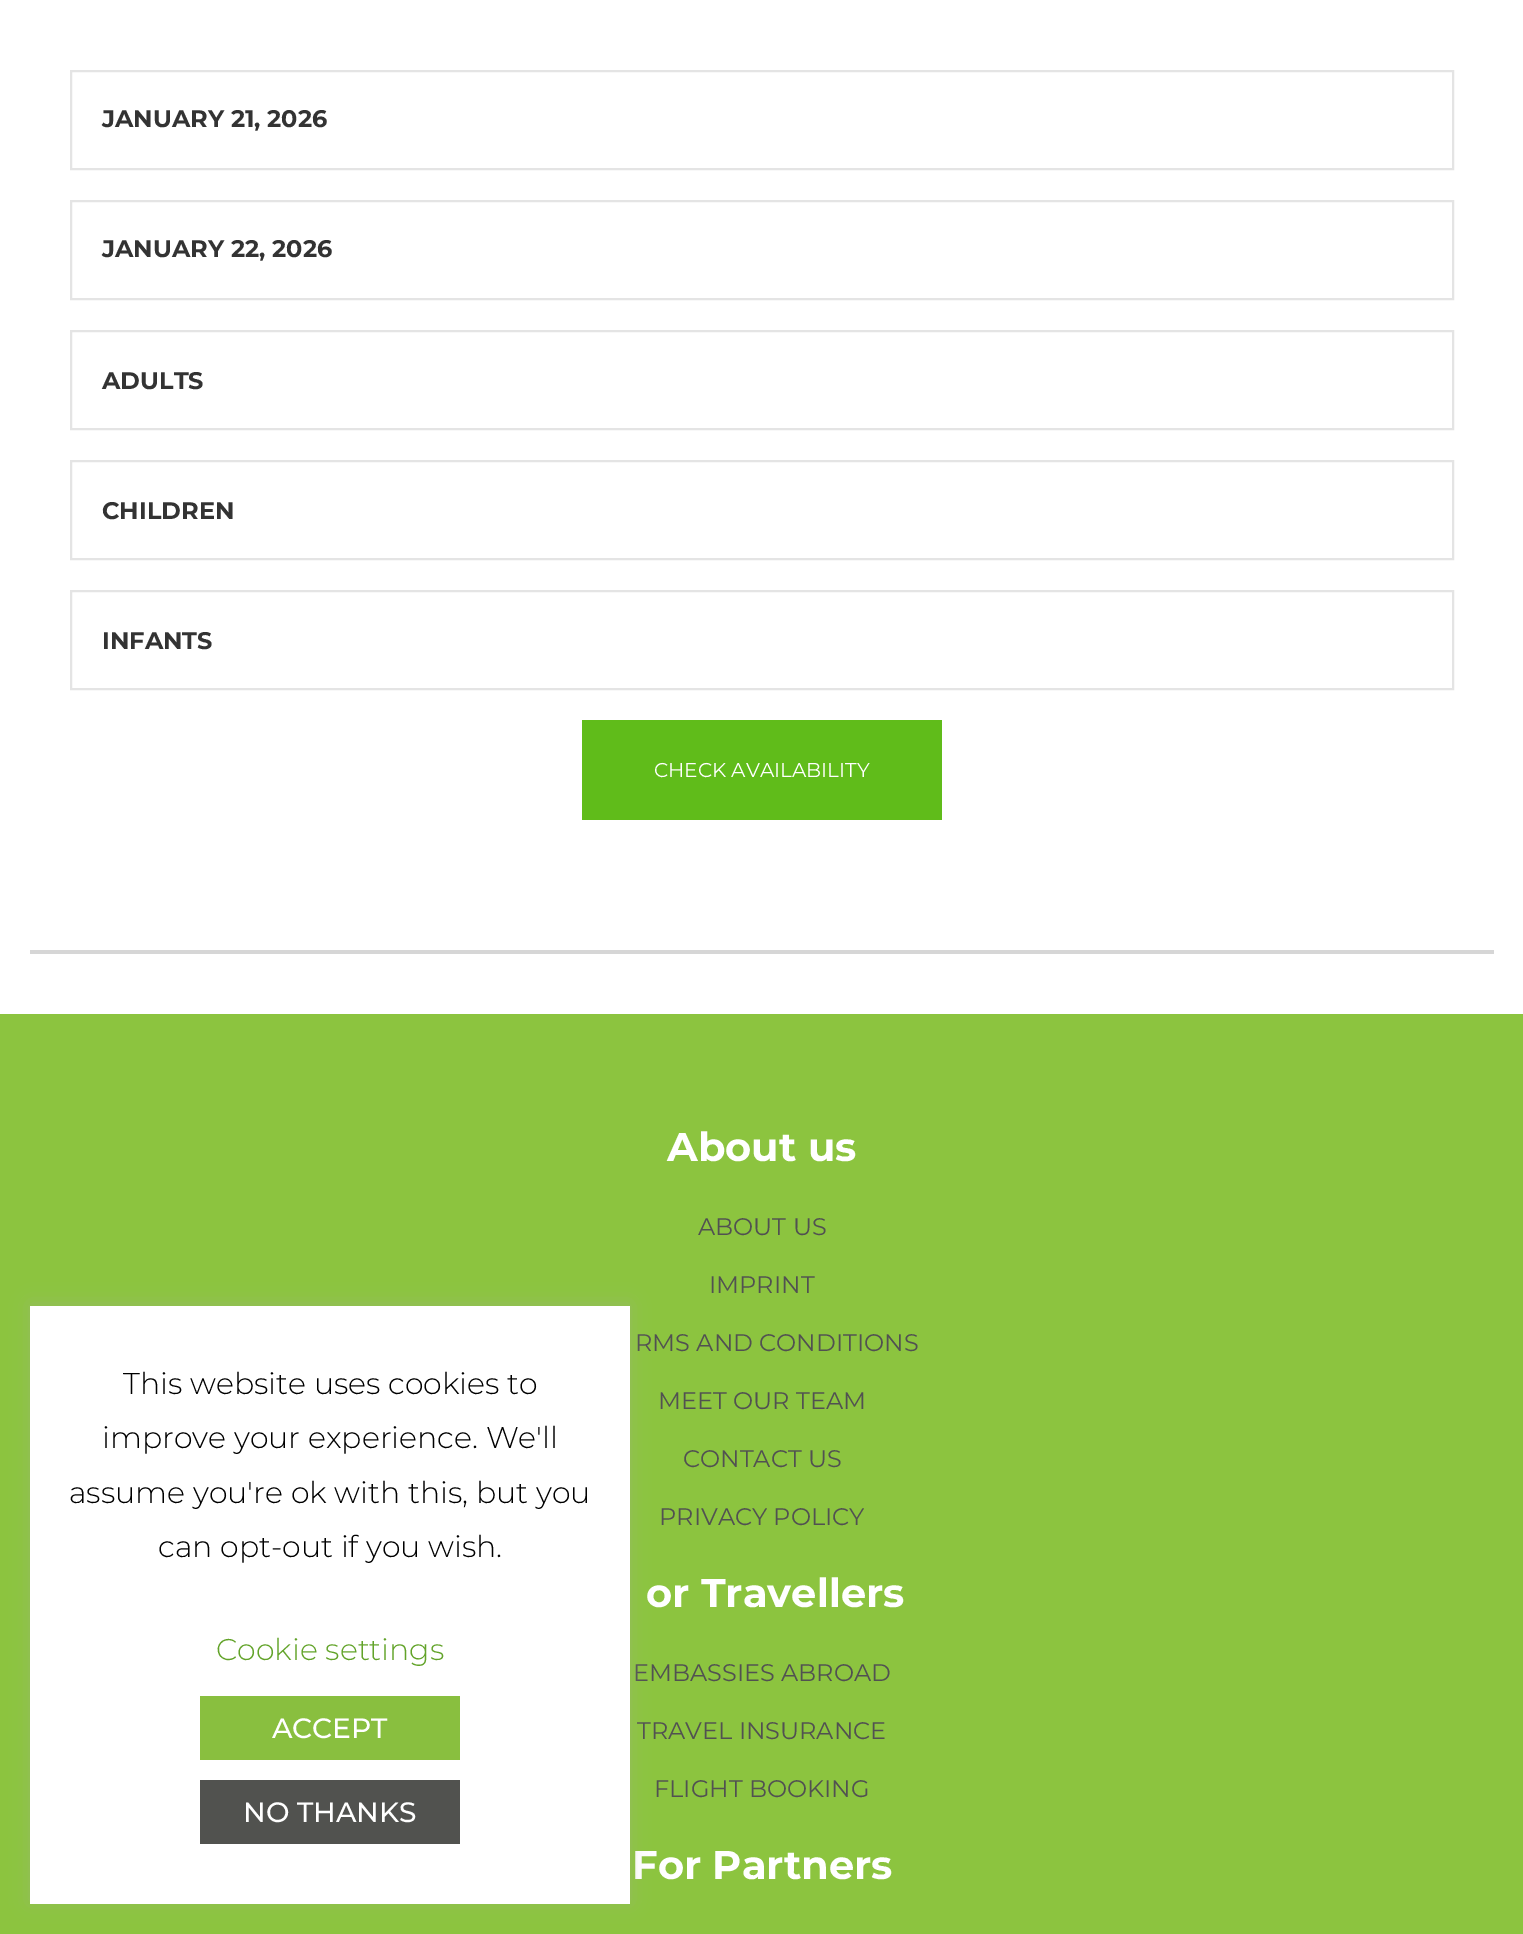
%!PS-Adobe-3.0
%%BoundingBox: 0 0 1523 1934
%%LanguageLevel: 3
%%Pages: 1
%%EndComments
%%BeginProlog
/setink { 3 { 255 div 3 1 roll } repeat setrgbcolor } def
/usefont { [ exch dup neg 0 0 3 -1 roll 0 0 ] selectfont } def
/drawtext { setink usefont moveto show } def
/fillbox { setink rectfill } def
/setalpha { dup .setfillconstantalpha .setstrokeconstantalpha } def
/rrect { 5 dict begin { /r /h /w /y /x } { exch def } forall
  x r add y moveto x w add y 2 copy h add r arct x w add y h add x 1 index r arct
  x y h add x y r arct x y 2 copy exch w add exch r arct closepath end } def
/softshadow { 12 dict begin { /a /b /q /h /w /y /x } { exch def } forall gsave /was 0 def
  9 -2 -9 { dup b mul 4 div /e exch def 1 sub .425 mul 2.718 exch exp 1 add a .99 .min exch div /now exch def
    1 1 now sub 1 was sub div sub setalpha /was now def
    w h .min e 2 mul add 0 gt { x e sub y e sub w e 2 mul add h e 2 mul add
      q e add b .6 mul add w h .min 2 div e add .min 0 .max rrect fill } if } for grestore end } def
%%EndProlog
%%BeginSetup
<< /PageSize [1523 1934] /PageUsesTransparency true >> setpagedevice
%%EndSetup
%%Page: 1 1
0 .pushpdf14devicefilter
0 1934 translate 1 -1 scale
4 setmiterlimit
0 0 1523 1934 255 255 255 fillbox
228 228 228 setink
2 setlinewidth
71 71 1382 98 rectstroke
(JANUARY 21, 2026) 102 127 /Montserrat-Bold 24 51 51 51 drawtext
228 228 228 setink
71 201 1382 98 rectstroke
(JANUARY 22, 2026) 102 257 /Montserrat-Bold 24 51 51 51 drawtext
228 228 228 setink
71 331 1382 98 rectstroke
(ADULTS) 102 389 /Montserrat-Bold 24 51 51 51 drawtext
228 228 228 setink
71 461 1382 98 rectstroke
(CHILDREN) 102 519 /Montserrat-Bold 24 51 51 51 drawtext
228 228 228 setink
71 591 1382 98 rectstroke
(INFANTS) 102 649 /Montserrat-Bold 24 51 51 51 drawtext
582 720 360 100 96 188 26 fillbox
(CHECK AVAILABILITY) 654 777 /Montserrat-Regular 20 255 255 255 drawtext
30 950 1464 4 214 214 214 fillbox
0 1014 1523 920 140 196 63 fillbox
(About us) 667 1161 /Montserrat-Bold 40 255 255 255 drawtext
(ABOUT US) 698 1235 /Montserrat-Regular 24 81 81 81 drawtext
(IMPRINT) 709 1293 /Montserrat-Regular 24 81 81 81 drawtext
(RMS AND CONDITIONS) 635 1351 /Montserrat-Regular 24 81 81 81 drawtext
(MEET OUR TEAM) 658 1409 /Montserrat-Regular 24 81 81 81 drawtext
(CONTACT US) 683 1467 /Montserrat-Regular 24 81 81 81 drawtext
(PRIVACY POLICY) 659 1525 /Montserrat-Regular 24 81 81 81 drawtext
(or Travellers) 646 1607 /Montserrat-Bold 40 255 255 255 drawtext
(EMBASSIES ABROAD) 633 1681 /Montserrat-Regular 24 81 81 81 drawtext
(TRAVEL INSURANCE) 637 1739 /Montserrat-Regular 24 81 81 81 drawtext
(FLIGHT BOOKING) 654 1797 /Montserrat-Regular 24 81 81 81 drawtext
(For Partners) 632 1879 /Montserrat-Bold 40 255 255 255 drawtext
172 171 171 setink
30 1304 600 598 0 10 0.3 softshadow
30 1306 600 598 255 255 255 fillbox
(This website uses cookies to) 123 1394 /Montserrat-Light 30 0 0 0 drawtext
(improve your experience. We'll) 102 1448 /Montserrat-Light 30 0 0 0 drawtext
(assume you're ok with this, but you) 69 1503 /Montserrat-Light 30 0 0 0 drawtext
(can opt-out if you wish.) 158 1557 /Montserrat-Light 30 0 0 0 drawtext
(Cookie settings) 216 1660 /Montserrat-Light 30 98 163 41 drawtext
200 1696 260 64 137 191 63 fillbox
(ACCEPT) 272 1738 /Montserrat-Medium 28 255 255 255 drawtext
200 1780 260 64 81 82 79 fillbox
(NO THANKS) 243 1822 /Montserrat-Medium 28 255 255 255 drawtext
.poppdf14devicefilter showpage
%%EOF
